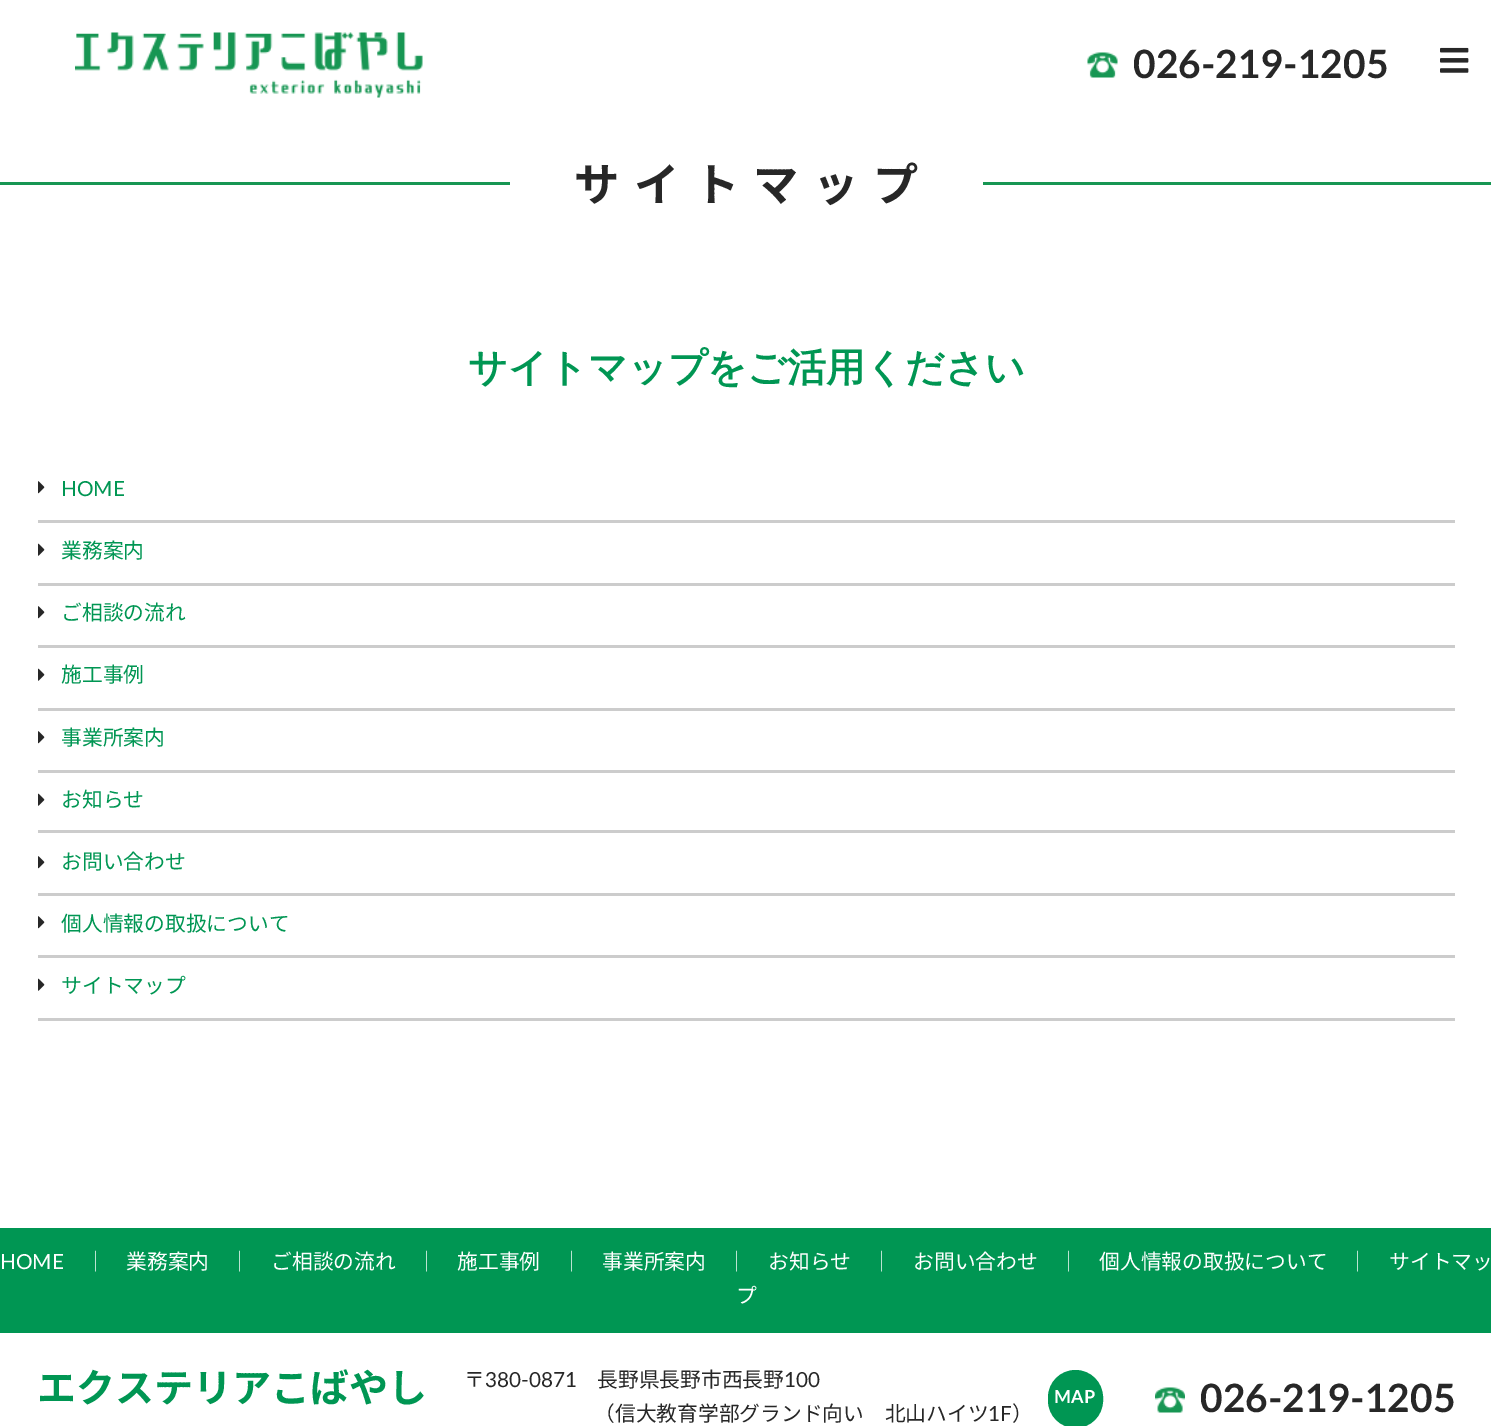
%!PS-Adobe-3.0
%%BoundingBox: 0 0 1491 1426
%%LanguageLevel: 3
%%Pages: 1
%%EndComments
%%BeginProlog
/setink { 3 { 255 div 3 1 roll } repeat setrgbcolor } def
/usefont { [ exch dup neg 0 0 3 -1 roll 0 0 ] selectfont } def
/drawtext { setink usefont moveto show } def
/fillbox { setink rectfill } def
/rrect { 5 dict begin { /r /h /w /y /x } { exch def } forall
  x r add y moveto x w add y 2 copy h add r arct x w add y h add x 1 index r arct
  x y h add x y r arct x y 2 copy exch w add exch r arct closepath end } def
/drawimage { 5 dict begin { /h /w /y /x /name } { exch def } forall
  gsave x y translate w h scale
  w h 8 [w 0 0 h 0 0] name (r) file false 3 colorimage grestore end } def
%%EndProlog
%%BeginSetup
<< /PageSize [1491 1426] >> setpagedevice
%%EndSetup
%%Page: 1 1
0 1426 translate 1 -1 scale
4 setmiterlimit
0 0 1491 1426 255 255 255 fillbox
(assets/img1.rgb) 75 32 348 66 drawimage
(assets/img2.rgb) 1087 52 31 26 drawimage
(026-219-1205) 1133 78 /Lato-Bold 39 39 39 39 drawtext
(assets/img3.rgb) 1440 47 29 26 drawimage
0 182 1491 3 23 150 83 fillbox
510 182 473 3 255 255 255 fillbox
/NotoSansJP-Bold 45.25 usefont
39 39 39 setink
574 201 moveto 14.5 0 (サイトマップ) ashow
(サイトマップをご活用ください) 468 381 /WenQuanYiZenHei-Bold 39 0 150 83 drawtext
38 520 1417 3 204 204 204 fillbox
(assets/img4.rgb) 38 481 7 13 drawimage
(HOME) 61 496 /Lato-Regular 20.75 0 150 83 drawtext
38 583 1417 3 204 204 204 fillbox
(assets/img5.rgb) 38 543 7 13 drawimage
(業務案内) 61 558 /NotoSansJP-Regular 20.75 0 150 83 drawtext
38 645 1417 3 204 204 204 fillbox
(assets/img4.rgb) 38 606 7 13 drawimage
(ご相談の流れ) 61 620 /NotoSansJP-Regular 20.75 0 150 83 drawtext
38 708 1417 3 204 204 204 fillbox
(assets/img5.rgb) 38 668 7 13 drawimage
(施工事例) 61 682 /NotoSansJP-Regular 20.75 0 150 83 drawtext
38 770 1417 3 204 204 204 fillbox
(assets/img4.rgb) 38 731 7 13 drawimage
(事業所案内) 61 745 /NotoSansJP-Regular 20.75 0 150 83 drawtext
38 830 1417 3 204 204 204 fillbox
(assets/img5.rgb) 38 793 7 13 drawimage
(お知らせ) 61 807 /NotoSansJP-Regular 20.75 0 150 83 drawtext
38 893 1417 3 204 204 204 fillbox
(assets/img4.rgb) 38 856 7 13 drawimage
(お問い合わせ) 61 869 /NotoSansJP-Regular 20.75 0 150 83 drawtext
38 955 1417 3 204 204 204 fillbox
(assets/img4.rgb) 38 916 7 13 drawimage
(個人情報の取扱について) 61 931 /NotoSansJP-Regular 20.75 0 150 83 drawtext
38 1018 1417 3 204 204 204 fillbox
(assets/img5.rgb) 38 978 7 13 drawimage
(サイトマップ) 61 993 /NotoSansJP-Regular 20.75 0 150 83 drawtext
0 1228 1491 105 0 150 83 fillbox
(HOME) 0 1269 /Lato-Regular 20.75 255 255 255 drawtext
(｜) 85 1269 /NotoSansJP-Regular 20.75 255 255 255 drawtext
(業務案内) 126 1269 /NotoSansJP-Regular 20.75 255 255 255 drawtext
(｜) 229 1269 /NotoSansJP-Regular 20.75 255 255 255 drawtext
(ご相談の流れ) 271 1269 /NotoSansJP-Regular 20.75 255 255 255 drawtext
(｜) 416 1269 /NotoSansJP-Regular 20.75 255 255 255 drawtext
(施工事例) 457 1269 /NotoSansJP-Regular 20.75 255 255 255 drawtext
(｜) 561 1269 /NotoSansJP-Regular 20.75 255 255 255 drawtext
(事業所案内) 602 1269 /NotoSansJP-Regular 20.75 255 255 255 drawtext
(｜) 726 1269 /NotoSansJP-Regular 20.75 255 255 255 drawtext
(お知らせ) 768 1269 /NotoSansJP-Regular 20.75 255 255 255 drawtext
(｜) 871 1269 /NotoSansJP-Regular 20.75 255 255 255 drawtext
(お問い合わせ) 913 1269 /NotoSansJP-Regular 20.75 255 255 255 drawtext
(｜) 1058 1269 /NotoSansJP-Regular 20.75 255 255 255 drawtext
(個人情報の取扱について) 1099 1269 /NotoSansJP-Regular 20.75 255 255 255 drawtext
(｜) 1347 1269 /NotoSansJP-Regular 20.75 255 255 255 drawtext
(サイトマッ) 1389 1269 /NotoSansJP-Regular 20.75 255 255 255 drawtext
(プ) 736 1303 /NotoSansJP-Regular 20.75 255 255 255 drawtext
(エクステリアこばやし) 37 1402 /NotoSansJP-Bold 39 0 150 83 drawtext
(〒) 464 1387 /NotoSansJP-Regular 20.75 39 39 39 drawtext
(380-0871) 485 1387 /Lato-Regular 20.75 39 39 39 drawtext
(長野県長野市西長野) 597 1387 /NotoSansJP-Regular 20.75 39 39 39 drawtext
(100) 784 1387 /Lato-Regular 20.75 39 39 39 drawtext
(（信大教育学部グランド向い　北山ハイツ) 594 1421 /NotoSansJP-Regular 20.75 39 39 39 drawtext
(1F) 988 1421 /Lato-Regular 20.75 39 39 39 drawtext
(）) 1012 1421 /NotoSansJP-Regular 20.75 39 39 39 drawtext
0 150 83 setink
1049.5 1371.5 52 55 26 rrect gsave fill grestore
3 setlinewidth
stroke
(MAP) 1054 1403 /Lato-Bold 18 255 255 255 drawtext
(assets/img6.rgb) 1155 1387 30 26 drawimage
(026-219-1205) 1200 1412 /Lato-Bold 39 39 39 39 drawtext
showpage
%%EOF
